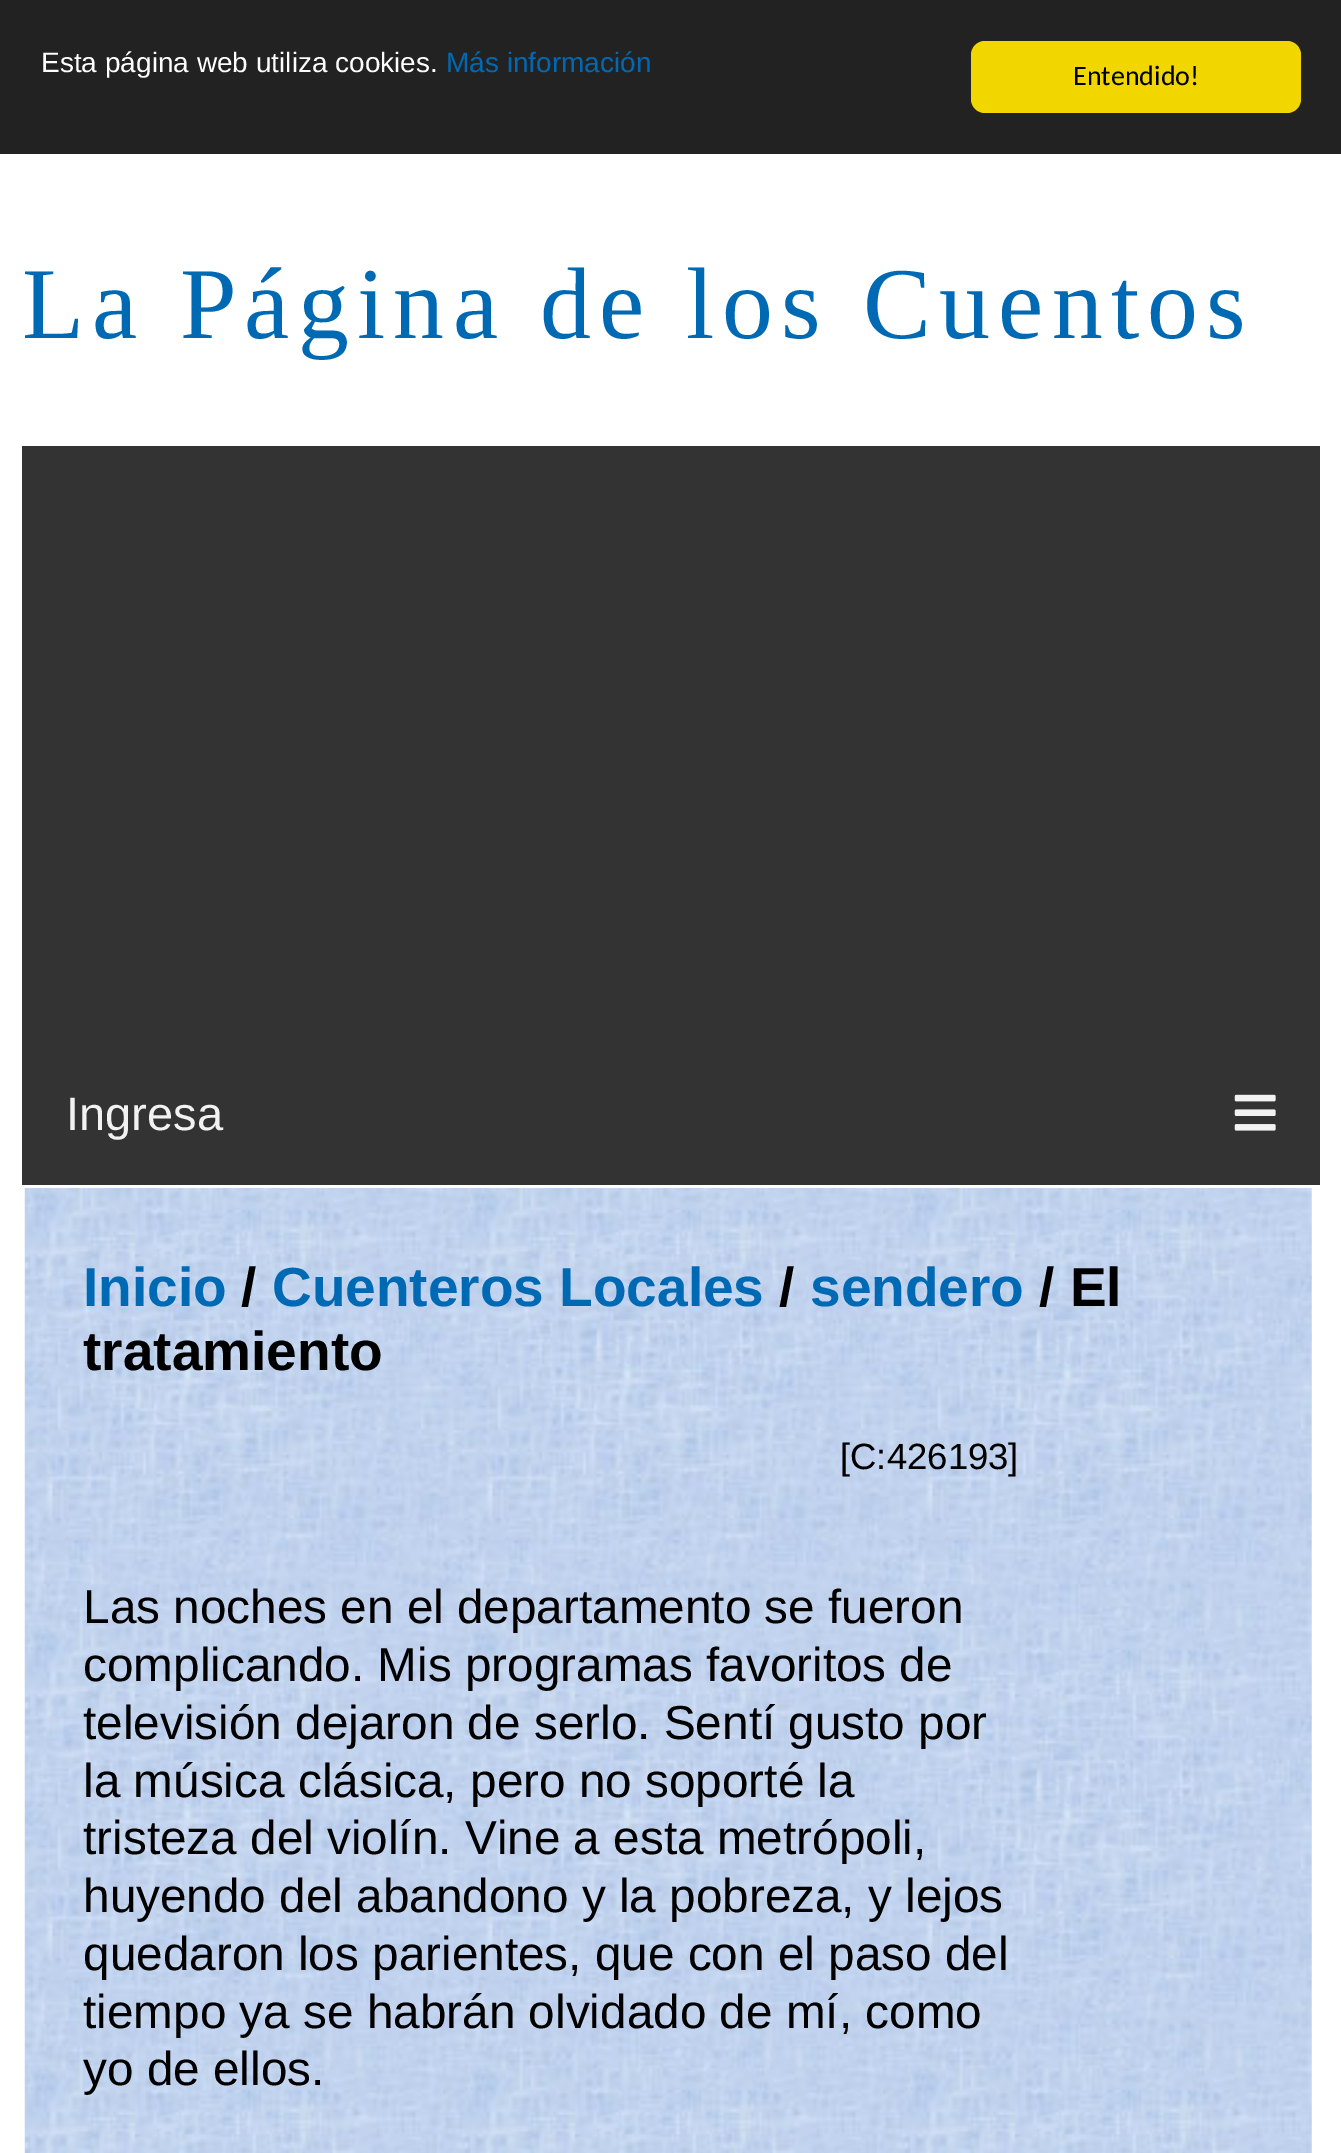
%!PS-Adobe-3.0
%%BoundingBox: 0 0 1341 2153
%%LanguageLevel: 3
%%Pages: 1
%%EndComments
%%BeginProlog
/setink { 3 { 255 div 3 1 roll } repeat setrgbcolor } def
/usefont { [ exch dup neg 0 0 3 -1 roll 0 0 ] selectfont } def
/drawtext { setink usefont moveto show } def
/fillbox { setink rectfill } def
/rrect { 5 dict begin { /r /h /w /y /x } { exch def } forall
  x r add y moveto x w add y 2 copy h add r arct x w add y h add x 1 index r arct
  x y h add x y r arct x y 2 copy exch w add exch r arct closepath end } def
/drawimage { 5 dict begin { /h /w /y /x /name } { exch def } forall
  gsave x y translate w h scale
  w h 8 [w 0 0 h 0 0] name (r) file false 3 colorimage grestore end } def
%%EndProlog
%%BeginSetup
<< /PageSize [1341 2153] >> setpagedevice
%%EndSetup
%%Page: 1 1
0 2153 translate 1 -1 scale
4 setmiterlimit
0 0 1341 2153 255 255 255 fillbox
0 0 1341 154 34 34 34 fillbox
(Esta página web utiliza cookies.) 41 72 /LiberationSans-Regular 28 255 255 255 drawtext
(Más información) 446 72 /LiberationSans-Regular 28 0 105 179 drawtext
241 214 0 setink
971 41 330 72 14 rrect fill
(Entendido!) 1073 85 /Carlito-Regular 28 0 0 0 drawtext
/LiberationSerif-Regular 101.75 usefont
0 105 179 setink
22 338 moveto 8.25 0 (La Página de los Cuentos) ashow
22 446 1298 739 51 51 51 fillbox
(Ingresa) 66 1130 /LiberationSans-Regular 47 242 242 242 drawtext
(assets/img1.rgb) 1234 1094 42 37 drawimage
(assets/img2.rgb) 24 1188 1288 965 drawimage
(Inicio) 83 1306 /LiberationSans-Bold 55 0 105 179 drawtext
(/) 241 1306 /LiberationSans-Bold 55 0 0 0 drawtext
(Cuenteros Locales) 272 1306 /LiberationSans-Bold 55 0 105 179 drawtext
(/) 779 1306 /LiberationSans-Bold 55 0 0 0 drawtext
(sendero) 810 1306 /LiberationSans-Bold 55 0 105 179 drawtext
(/ El) 1039 1306 /LiberationSans-Bold 55 0 0 0 drawtext
(tratamiento) 83 1370 /LiberationSans-Bold 55 0 0 0 drawtext
([C:426193]) 840 1469 /LiberationSans-Regular 36.5 0 0 0 drawtext
(Las noches en el departamento se fueron) 83 1623 /LiberationSans-Regular 47.7 0 0 0 drawtext
(complicando. Mis programas favoritos de) 83 1681 /LiberationSans-Regular 47.7 0 0 0 drawtext
(televisión dejaron de serlo. Sentí gusto por) 83 1739 /LiberationSans-Regular 47.7 0 0 0 drawtext
(la música clásica, pero no soporté la) 83 1797 /LiberationSans-Regular 47.7 0 0 0 drawtext
(tristeza del violín. Vine a esta metrópoli,) 83 1854 /LiberationSans-Regular 47.7 0 0 0 drawtext
(huyendo del abandono y la pobreza, y lejos) 83 1912 /LiberationSans-Regular 47.7 0 0 0 drawtext
(quedaron los parientes, que con el paso del) 83 1970 /LiberationSans-Regular 47.7 0 0 0 drawtext
(tiempo ya se habrán olvidado de mí, como) 83 2028 /LiberationSans-Regular 47.7 0 0 0 drawtext
(yo de ellos.) 83 2085 /LiberationSans-Regular 47.7 0 0 0 drawtext
showpage
%%EOF
